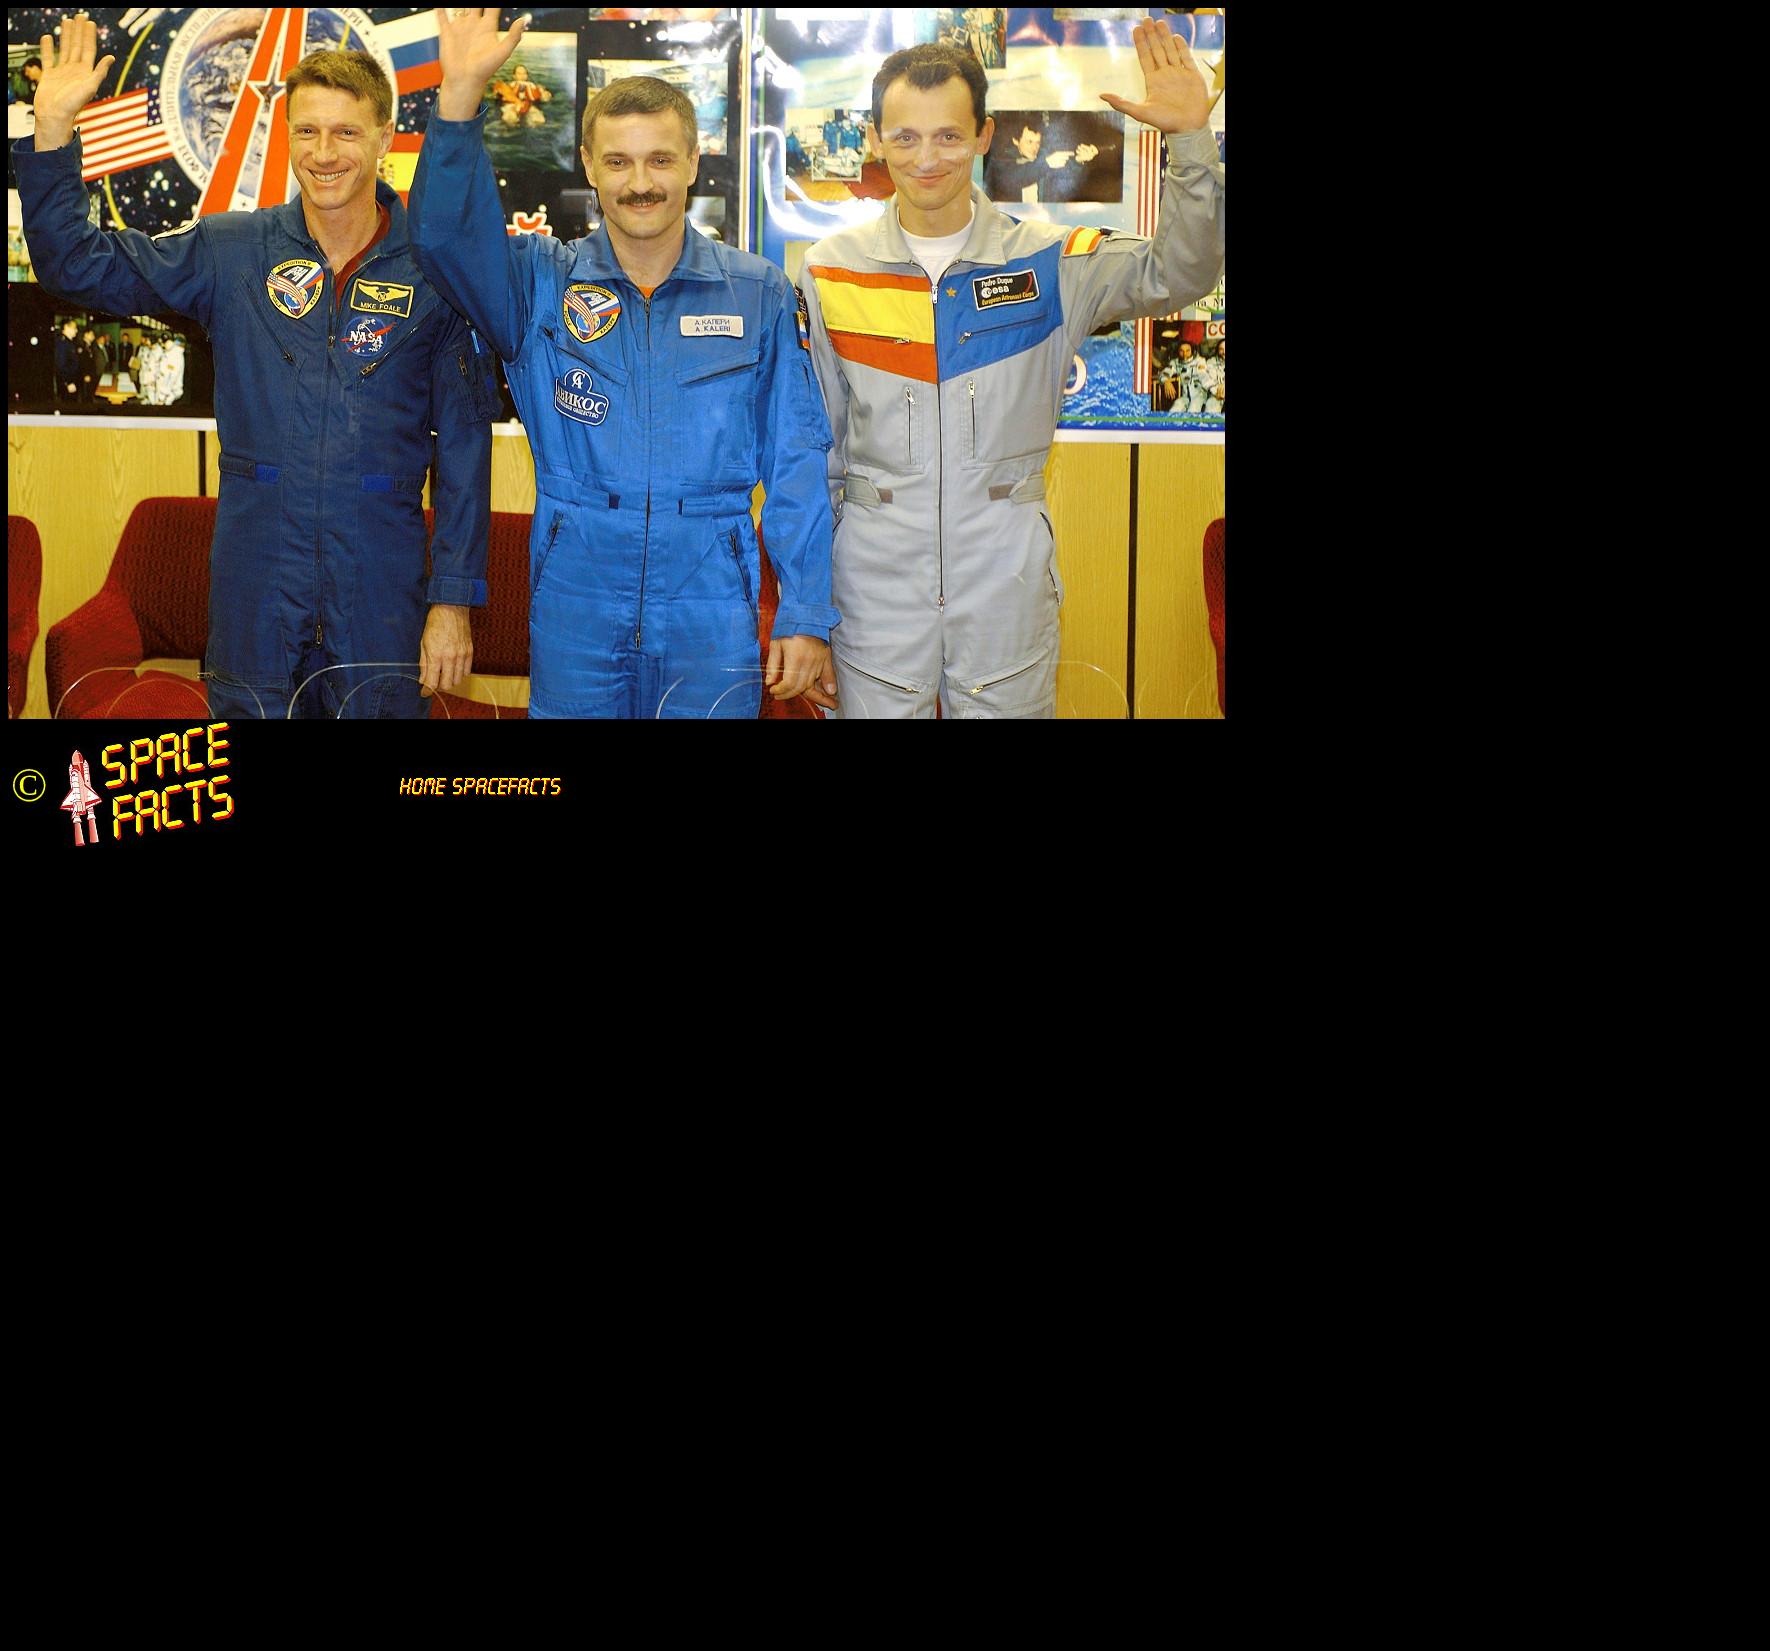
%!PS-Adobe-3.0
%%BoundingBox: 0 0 1770 1651
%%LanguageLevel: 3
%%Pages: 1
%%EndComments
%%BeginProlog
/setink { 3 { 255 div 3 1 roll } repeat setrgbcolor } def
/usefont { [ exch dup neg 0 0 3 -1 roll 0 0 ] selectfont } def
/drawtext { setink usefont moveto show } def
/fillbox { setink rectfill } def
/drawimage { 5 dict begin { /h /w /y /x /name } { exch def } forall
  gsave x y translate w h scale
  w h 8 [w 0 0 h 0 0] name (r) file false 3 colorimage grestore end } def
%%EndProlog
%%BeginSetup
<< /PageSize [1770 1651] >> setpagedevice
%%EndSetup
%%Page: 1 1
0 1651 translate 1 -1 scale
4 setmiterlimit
0 0 1770 1651 0 0 0 fillbox
(assets/img1.rgb) 8 8 1217 711 drawimage
(©) 11 801 /LiberationSerif-Regular 48 255 255 0 drawtext
(assets/img2.rgb) 60 722 174 124 drawimage
(assets/img3.rgb) 400 778 161 17 drawimage
showpage
%%EOF
